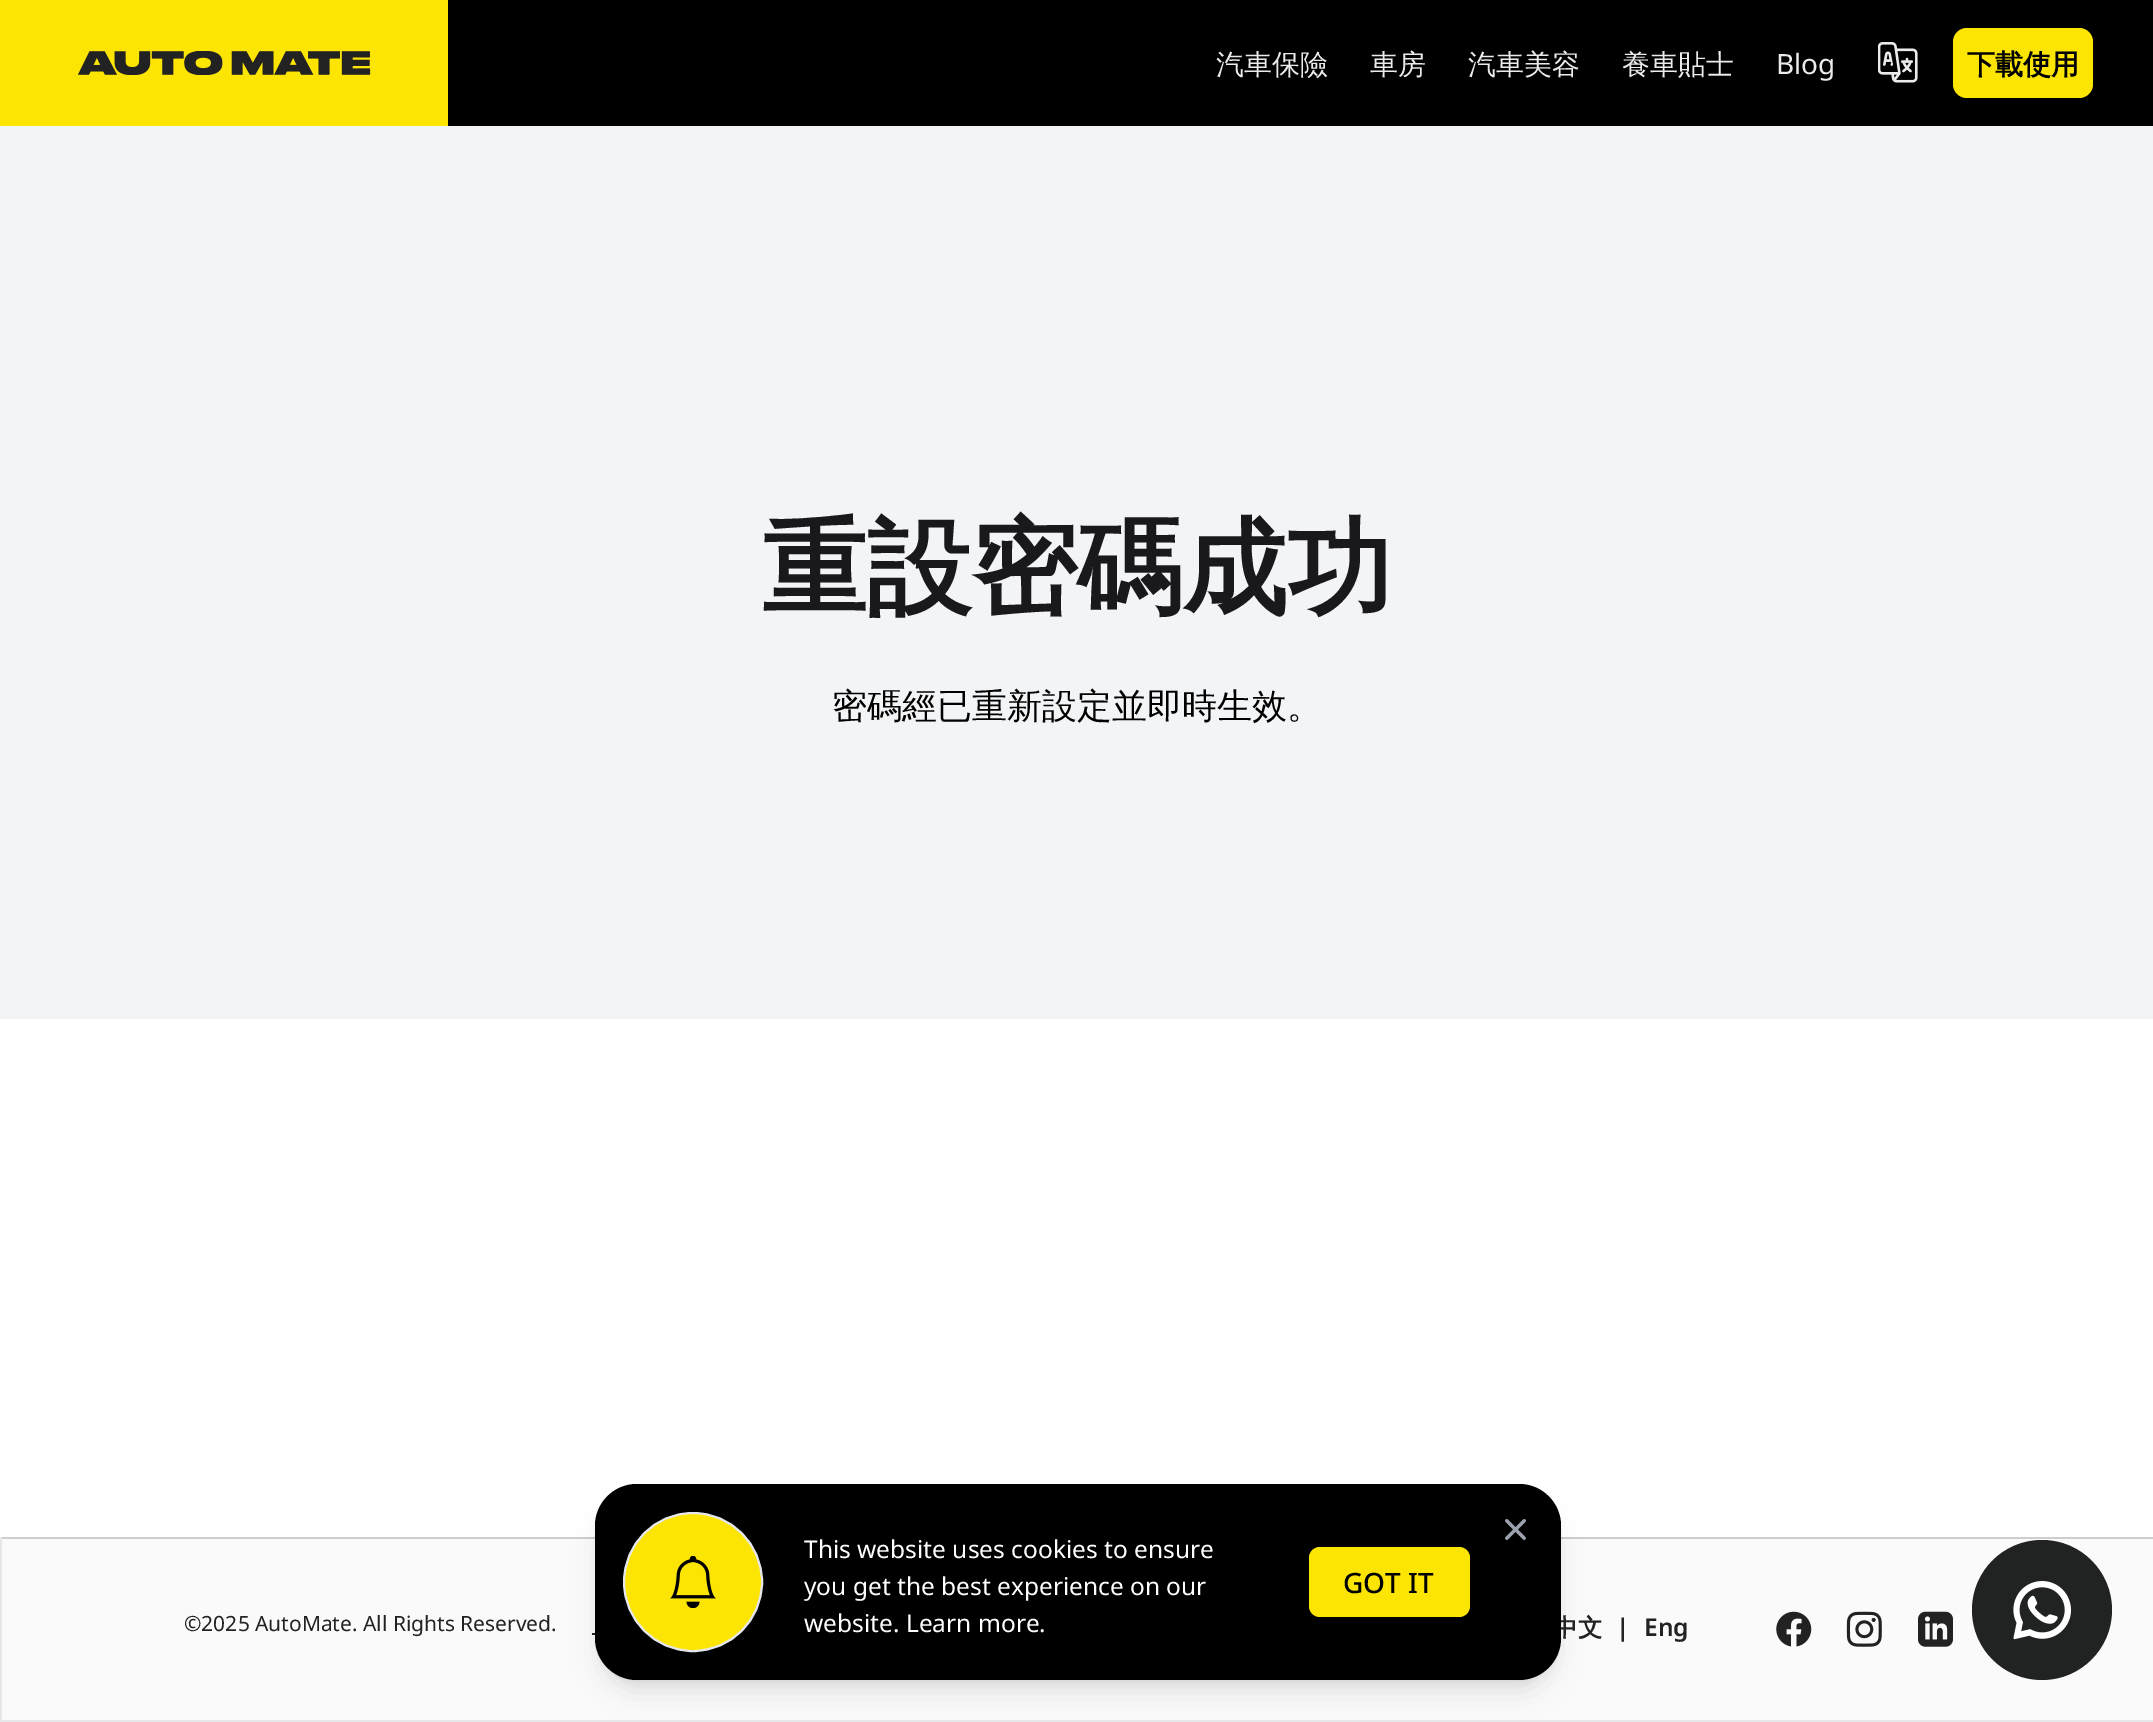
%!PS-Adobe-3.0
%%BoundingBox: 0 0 2153 1722
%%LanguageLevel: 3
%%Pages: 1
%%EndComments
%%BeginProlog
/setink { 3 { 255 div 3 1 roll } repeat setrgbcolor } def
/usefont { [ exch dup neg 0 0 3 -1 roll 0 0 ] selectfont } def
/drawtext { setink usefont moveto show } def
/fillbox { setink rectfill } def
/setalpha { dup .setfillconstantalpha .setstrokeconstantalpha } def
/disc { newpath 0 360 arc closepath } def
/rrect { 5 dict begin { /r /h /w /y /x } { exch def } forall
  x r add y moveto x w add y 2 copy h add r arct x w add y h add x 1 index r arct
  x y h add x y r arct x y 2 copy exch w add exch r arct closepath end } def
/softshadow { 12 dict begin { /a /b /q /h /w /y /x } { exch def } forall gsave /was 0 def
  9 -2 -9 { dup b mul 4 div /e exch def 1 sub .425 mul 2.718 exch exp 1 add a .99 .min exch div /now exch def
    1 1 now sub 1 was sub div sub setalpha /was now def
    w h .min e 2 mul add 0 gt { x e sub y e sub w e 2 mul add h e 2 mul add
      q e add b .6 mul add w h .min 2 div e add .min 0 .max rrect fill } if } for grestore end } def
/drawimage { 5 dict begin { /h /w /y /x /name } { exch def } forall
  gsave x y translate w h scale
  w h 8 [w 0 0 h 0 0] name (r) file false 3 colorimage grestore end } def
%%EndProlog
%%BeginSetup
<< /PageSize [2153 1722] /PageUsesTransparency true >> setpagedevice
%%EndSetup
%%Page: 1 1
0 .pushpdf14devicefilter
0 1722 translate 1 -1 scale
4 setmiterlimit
0 0 2153 1722 255 255 255 fillbox
448 0 1705 126 0 0 0 fillbox
0 0 448 126 253 229 3 fillbox
(assets/img1.rgb) 78 51 293 24 drawimage
(汽車保險) 1216 74 /WenQuanYiZenHei-Medium 28 235 235 235 drawtext
(車房) 1370 74 /WenQuanYiZenHei-Medium 28 235 235 235 drawtext
(汽車美容) 1468 74 /WenQuanYiZenHei-Medium 28 235 235 235 drawtext
(養車貼士) 1622 74 /WenQuanYiZenHei-Medium 28 235 235 235 drawtext
(Blog) 1776 74 /NotoSans-Regular 28 235 235 235 drawtext
(assets/img2.rgb) 1878 42 40 41 drawimage
253 229 3 setink
1953 28 140 70 14 rrect fill
(下載使用) 1967 74 /WenQuanYiZenHei-Bold 28 0 0 0 drawtext
0 126 2153 893 243 244 246 fillbox
(重設密碼成功) 762 604 /WenQuanYiZenHei-Bold 105 25 25 27 drawtext
(密碼經已重新設定並即時生效。) 832 718 /WenQuanYiZenHei-Medium 35 0 0 0 drawtext
2 1539 2151 181 250 250 250 fillbox
0 1537 2153 2 206 206 206 fillbox
0 1720 2153 2 229 231 235 fillbox
0 1537 2 185 229 231 235 fillbox
(©2025 AutoMate. All Rights Reserved.) 184 1631 /NotoSans-Regular 21 34 34 34 drawtext
592 1633 3 2 34 34 34 fillbox
(中文) 1553 1636 /WenQuanYiZenHei-Bold 24.5 34 34 34 drawtext
(|) 1616 1636 /NotoSans-SemiBold 24.5 34 34 34 drawtext
(Eng) 1644 1636 /NotoSans-SemiBold 24.5 34 34 34 drawtext
(assets/img3.rgb) 1776 1611 36 36 drawimage
(assets/img4.rgb) 1846 1611 36 36 drawimage
(assets/img5.rgb) 1918 1611 35 36 drawimage
0 0 0 setink
602 1498 952 182 35 5 0.1 softshadow
600 1507 956 185 37 13 0.1 softshadow
595 1484 966 196 42 rrect fill
(assets/img6.rgb) 1505 1519 21 21 drawimage
253 229 3 setink
693 1582 69 disc gsave fill grestore
229 231 235 setink
2 setlinewidth
stroke
(assets/img7.rgb) 670 1556 46 52 drawimage
(This website uses cookies to ensure) 804 1558 /NotoSans-Regular 24.5 255 255 255 drawtext
(you get the best experience on our) 804 1595 /NotoSans-Regular 24.5 255 255 255 drawtext
(website. Learn more.) 804 1632 /NotoSans-Regular 24.5 255 255 255 drawtext
253 229 3 setink
1309 1547 161 70 11 rrect fill
(GOT IT) 1343 1593 /NotoSans-Medium 28 0 0 0 drawtext
33 34 34 setink
2042 1610 70 disc fill
(assets/img8.rgb) 2013 1581 59 59 drawimage
.poppdf14devicefilter showpage
%%EOF
